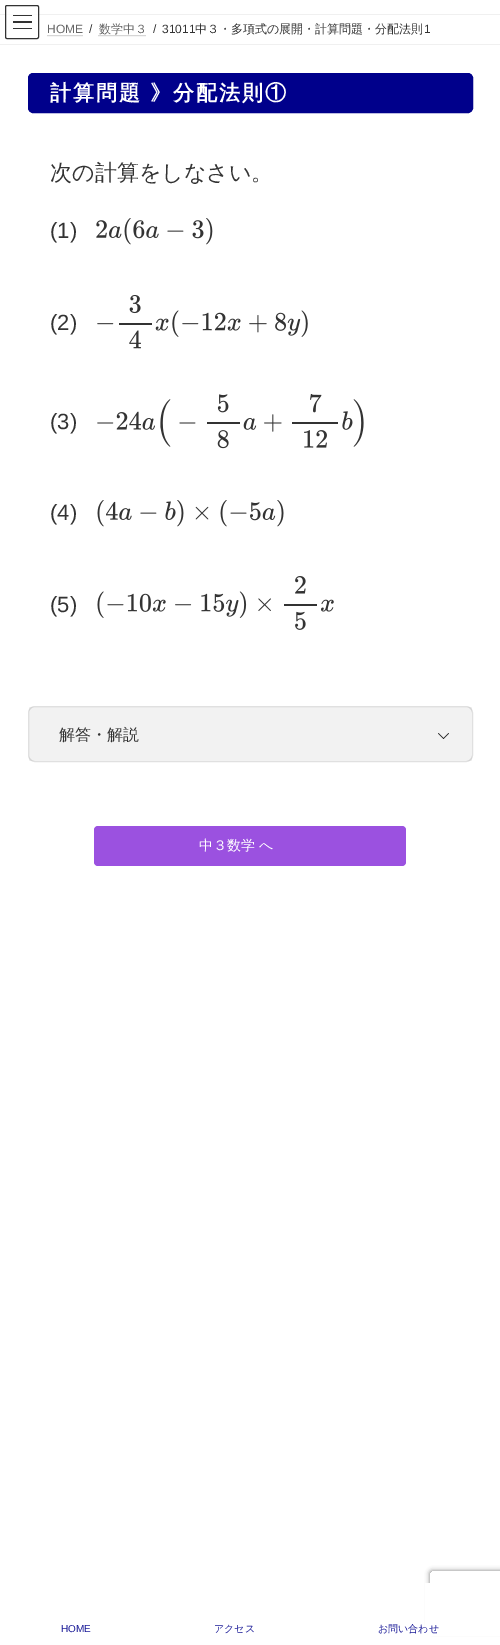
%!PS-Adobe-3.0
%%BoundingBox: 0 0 500 1645
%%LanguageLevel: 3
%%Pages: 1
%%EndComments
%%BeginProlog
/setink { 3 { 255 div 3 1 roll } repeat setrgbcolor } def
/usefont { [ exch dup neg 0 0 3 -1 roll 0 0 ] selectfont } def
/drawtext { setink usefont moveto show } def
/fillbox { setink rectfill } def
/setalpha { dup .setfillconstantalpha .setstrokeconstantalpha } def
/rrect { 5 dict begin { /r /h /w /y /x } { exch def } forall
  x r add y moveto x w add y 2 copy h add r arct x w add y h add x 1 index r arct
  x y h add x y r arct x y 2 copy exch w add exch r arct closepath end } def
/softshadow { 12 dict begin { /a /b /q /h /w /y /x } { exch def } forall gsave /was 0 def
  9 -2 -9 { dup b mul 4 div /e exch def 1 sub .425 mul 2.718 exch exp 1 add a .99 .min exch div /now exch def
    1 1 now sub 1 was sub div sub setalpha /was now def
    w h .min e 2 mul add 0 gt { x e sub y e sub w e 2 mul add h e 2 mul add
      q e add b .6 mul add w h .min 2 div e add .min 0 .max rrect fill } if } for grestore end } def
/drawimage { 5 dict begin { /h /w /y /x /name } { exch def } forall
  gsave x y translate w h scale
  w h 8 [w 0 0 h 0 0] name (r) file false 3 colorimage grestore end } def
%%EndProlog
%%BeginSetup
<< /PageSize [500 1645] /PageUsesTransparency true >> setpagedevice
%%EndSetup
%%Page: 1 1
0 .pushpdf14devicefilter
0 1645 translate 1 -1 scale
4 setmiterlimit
0 0 500 1645 255 255 255 fillbox
0 14 500 1 240 240 240 fillbox
0.8 setalpha
255 255 255 setink
5 5 34 34 2 rrect fill
1 setalpha
13 15 19 1 51 51 51 fillbox
13 21 19 2 51 51 51 fillbox
13 28 19 1 51 51 51 fillbox
5.5 5.5 33 33 1.5 rrect stroke
0 44 500 1 240 240 240 fillbox
(HOME) 47 33 /LiberationSans-Regular 12 102 102 102 drawtext
179 179 179 setink
[1 1] 0 setdash
47.5 35.5 moveto 83.5 35.5 lineto stroke
(/) 89 33 /LiberationSans-Regular 12 51 51 51 drawtext
(数学中３) 99 33 /WenQuanYiZenHei-Medium 12 102 102 102 drawtext
179 179 179 setink
98.5 35.5 moveto 146.5 35.5 lineto stroke
(/) 153 33 /LiberationSans-Regular 12 51 51 51 drawtext
(31011) 162 33 /LiberationSans-Regular 12 51 51 51 drawtext
(中３・多項式の展開・計算問題・分配法則) 195 33 /WenQuanYiZenHei-Medium 12 51 51 51 drawtext
(1) 424 33 /LiberationSans-Regular 12 51 51 51 drawtext
0 0 139 setink
28.5 73.5 444 39 4.5 rrect gsave fill grestore
[] 0 setdash
stroke
/WenQuanYiZenHei-Bold 21 usefont
255 255 255 setink
50 100 moveto 2 0 (計算問題) ashow
150 100 moveto 2 0 (》分配法則①) ashow
(次の計算をしなさい。) 50 180 /WenQuanYiZenHei-Medium 22 51 51 51 drawtext
(\(1\)) 50 238 /LiberationSans-Regular 22 51 51 51 drawtext
(assets/img1.rgb) 96 218 117 27 drawimage
(\(2\)) 50 330 /LiberationSans-Regular 22 51 51 51 drawtext
(assets/img2.rgb) 97 295 211 54 drawimage
(\(3\)) 50 429 /LiberationSans-Regular 22 51 51 51 drawtext
(assets/img3.rgb) 97 394 267 55 drawimage
(\(4\)) 50 520 /LiberationSans-Regular 22 51 51 51 drawtext
(assets/img4.rgb) 97 500 187 27 drawimage
(\(5\)) 50 612 /LiberationSans-Regular 22 51 51 51 drawtext
(assets/img5.rgb) 97 576 237 54 drawimage
224 224 224 setink
28.5 706.5 444 55 6.5 rrect stroke
0.05 setalpha
29 707 443 54 0 0 0 fillbox
1 setalpha
(解答・解説) 59 740 /WenQuanYiZenHei-Medium 16 51 51 51 drawtext
34 34 34 setink
449 733.5 moveto 443.5 739 lineto 443 738.5 lineto 448.5 733 lineto closepath fill
444 738.5 moveto 443.5 739 lineto 438 733.5 lineto 438.5 733 lineto closepath fill
155 81 224 setink
94 826 312 40 4 rrect fill
(中３数学 へ) 199 850 /WenQuanYiZenHei-Medium 14 255 255 255 drawtext
gsave
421 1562 moveto 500 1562 lineto 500 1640 lineto 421 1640 lineto closepath 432 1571 moveto 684 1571 lineto 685 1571 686 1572 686 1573 curveto 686 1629 lineto 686 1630 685 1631 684 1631 curveto 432 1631 lineto 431 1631 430 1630 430 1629 curveto 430 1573 lineto 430 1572 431 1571 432 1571 curveto closepath eoclip newpath
128 128 128 setink
430 1571 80 60 2 2.5 1 softshadow
grestore
425 1583 75 53 255 255 255 fillbox
(HOME) 61 1632 /LiberationSans-Regular 10 26 26 151 drawtext
(アクセス) 214 1632 /WenQuanYiZenHei-Medium 10 26 26 151 drawtext
(お問い合わせ) 378 1632 /WenQuanYiZenHei-Medium 10 26 26 151 drawtext
.poppdf14devicefilter showpage
%%EOF
